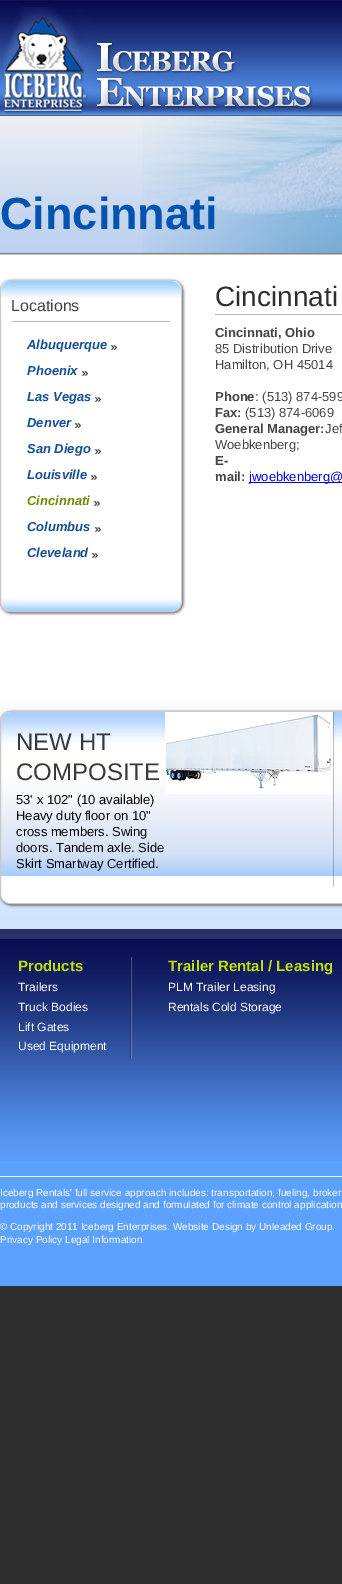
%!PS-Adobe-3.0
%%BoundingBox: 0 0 342 1584
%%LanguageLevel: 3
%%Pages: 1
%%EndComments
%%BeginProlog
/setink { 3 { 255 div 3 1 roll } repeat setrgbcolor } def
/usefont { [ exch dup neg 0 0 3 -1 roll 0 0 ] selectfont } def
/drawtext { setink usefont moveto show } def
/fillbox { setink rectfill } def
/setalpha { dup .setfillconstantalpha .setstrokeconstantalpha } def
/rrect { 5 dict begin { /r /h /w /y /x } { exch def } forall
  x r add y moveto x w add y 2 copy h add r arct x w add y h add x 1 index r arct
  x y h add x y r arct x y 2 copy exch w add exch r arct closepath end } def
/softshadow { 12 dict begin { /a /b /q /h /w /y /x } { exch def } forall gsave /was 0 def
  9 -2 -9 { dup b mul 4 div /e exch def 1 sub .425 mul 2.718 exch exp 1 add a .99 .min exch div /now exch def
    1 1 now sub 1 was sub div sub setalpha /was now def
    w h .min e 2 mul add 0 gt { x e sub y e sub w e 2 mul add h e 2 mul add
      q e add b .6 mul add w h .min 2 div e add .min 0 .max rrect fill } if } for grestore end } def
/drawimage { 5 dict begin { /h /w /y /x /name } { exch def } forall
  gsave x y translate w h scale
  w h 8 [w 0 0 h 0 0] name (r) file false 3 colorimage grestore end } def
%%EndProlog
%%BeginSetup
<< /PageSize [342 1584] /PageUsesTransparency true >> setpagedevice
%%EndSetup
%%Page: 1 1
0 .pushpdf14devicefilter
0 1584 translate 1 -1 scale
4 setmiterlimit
0 0 342 1584 46 46 46 fillbox
(assets/img1.rgb) 0 0 342 115 drawimage
0 115 342 1 90 96 124 fillbox
(assets/img2.rgb) 3 7 310 107 drawimage
(assets/img3.rgb) 0 116 342 139 drawimage
(assets/img4.rgb) 143 116 199 137 drawimage
(Cincinnati) 0 229 /LiberationSans-Bold 45 5 82 175 drawtext
0 255 342 444 255 255 255 fillbox
(assets/img5.rgb) 0 699 342 230 drawimage
gsave
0 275 moveto 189 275 lineto 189 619 lineto 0 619 lineto closepath 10 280 moveto 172 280 lineto 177.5 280 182 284.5 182 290 curveto 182 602 lineto 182 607.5 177.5 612 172 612 curveto 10 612 lineto 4.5 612 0 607.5 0 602 curveto 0 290 lineto 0 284.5 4.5 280 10 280 curveto closepath eoclip newpath
0 0 0 setink
1 281 182 332 10 1.5 0.75 softshadow
grestore
(assets/img6.rgb) 1 599 180 12 drawimage
201 201 201 setink
0.5 280.5 181 331 9.5 rrect stroke
255 255 255 setink
10 281 moveto 172 281 lineto 177 281 181 285 181 290 curveto 181 321 lineto 1 321 lineto 1 290 lineto 1 285 5 281 10 281 curveto closepath fill
(assets/img7.rgb) 1 281 180 17 drawimage
(Locations) 11 311 /LiberationSans-Regular 16 68 68 68 drawtext
12 321 158 1 182 182 182 fillbox
(Albuquerque) 27 349 /LiberationSans-BoldItalic 13 20 78 150 drawtext
(assets/img8.rgb) 110 345 7 5 drawimage
(Phoenix) 27 375 /LiberationSans-BoldItalic 13 20 78 150 drawtext
(assets/img8.rgb) 81 371 7 5 drawimage
(Las Vegas) 27 401 /LiberationSans-BoldItalic 13 20 78 150 drawtext
(assets/img8.rgb) 94 397 7 5 drawimage
(Denver) 27 427 /LiberationSans-BoldItalic 13 20 78 150 drawtext
(assets/img8.rgb) 74 423 7 5 drawimage
(San Diego) 27 453 /LiberationSans-BoldItalic 13 20 78 150 drawtext
(assets/img8.rgb) 94 449 7 5 drawimage
(Louisville) 27 479 /LiberationSans-BoldItalic 13 20 78 150 drawtext
(assets/img8.rgb) 90 475 7 5 drawimage
(Cincinnati) 27 505 /LiberationSans-BoldItalic 13 114 135 7 drawtext
(assets/img8.rgb) 93 501 7 5 drawimage
(Columbus) 27 531 /LiberationSans-BoldItalic 13 20 78 150 drawtext
(assets/img8.rgb) 94 527 7 5 drawimage
(Cleveland) 27 557 /LiberationSans-BoldItalic 13 20 78 150 drawtext
(assets/img8.rgb) 91 553 7 5 drawimage
215 314 127 1 182 182 182 fillbox
(Cincinnati) 215 306 /LiberationSans-Regular 28 46 46 46 drawtext
(Cincinnati, Ohio) 215 337 /LiberationSans-Bold 13 68 68 68 drawtext
(85 Distribution Drive) 215 353 /LiberationSans-Regular 13 68 68 68 drawtext
(Hamilton, OH 45014) 215 369 /LiberationSans-Regular 13 68 68 68 drawtext
(Phone) 215 401 /LiberationSans-Bold 13 68 68 68 drawtext
(: \(513\) 874-599) 255 401 /LiberationSans-Regular 13 68 68 68 drawtext
(Fax:) 215 417 /LiberationSans-Bold 13 68 68 68 drawtext
(\(513\) 874-6069) 245 417 /LiberationSans-Regular 13 68 68 68 drawtext
(General Manager:) 215 433 /LiberationSans-Bold 13 68 68 68 drawtext
(Jef) 325 433 /LiberationSans-Regular 13 68 68 68 drawtext
(Woebkenberg;) 215 449 /LiberationSans-Regular 13 68 68 68 drawtext
(E-) 215 465 /LiberationSans-Bold 13 68 68 68 drawtext
(mail:) 215 481 /LiberationSans-Bold 13 68 68 68 drawtext
249 482 93 1 0 0 238 fillbox
(jwoebkenberg@) 249 481 /LiberationSans-Regular 13 0 0 238 drawtext
gsave
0 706 moveto 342 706 lineto 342 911 lineto 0 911 lineto closepath 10 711 moveto 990 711 lineto 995.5 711 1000 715.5 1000 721 curveto 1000 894 lineto 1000 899.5 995.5 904 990 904 curveto 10 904 lineto 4.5 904 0 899.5 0 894 curveto 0 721 lineto 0 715.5 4.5 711 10 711 curveto closepath eoclip newpath
0 0 0 setink
1 712 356 193 10 1.5 0.75 softshadow
grestore
255 255 255 setink
1 712 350 191 9 rrect fill
(assets/img9.rgb) 1 712 341 164 drawimage
201 201 201 setink
0.5 711.5 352 192 9.5 rrect stroke
(assets/img10.rgb) 165 712 168 82 drawimage
(NEW HT) 16 750 /LiberationSans-Regular 24 57 57 57 drawtext
(COMPOSITE) 16 780 /LiberationSans-Regular 24 57 57 57 drawtext
(53' x 102" \(10 available\)) 16 804 /LiberationSans-Regular 13 0 0 0 drawtext
(Heavy duty floor on 10") 16 820 /LiberationSans-Regular 13 0 0 0 drawtext
(cross members. Swing) 16 836 /LiberationSans-Regular 13 0 0 0 drawtext
(doors. Tandem axle. Side) 16 852 /LiberationSans-Regular 13 0 0 0 drawtext
(Skirt Smartway Certified.) 16 868 /LiberationSans-Regular 13 0 0 0 drawtext
0.25 setalpha
333 712 1 175 0 0 0 fillbox
1 setalpha
0 1161 342 125 93 161 255 fillbox
(assets/img11.rgb) 0 939 342 222 drawimage
0 929 342 10 44 47 103 fillbox
(assets/img12.rgb) 130 957 2 102 drawimage
(Products) 18 971 /LiberationSans-Bold 15 193 222 8 drawtext
(Trailers) 18 991 /LiberationSans-Regular 12 255 255 255 drawtext
(Truck Bodies) 18 1011 /LiberationSans-Regular 12 255 255 255 drawtext
(Lift Gates) 18 1031 /LiberationSans-Regular 12 255 255 255 drawtext
(Used Equipment) 18 1050 /LiberationSans-Regular 12 255 255 255 drawtext
(Trailer Rental / Leasing) 168 971 /LiberationSans-Bold 15 193 222 8 drawtext
(PLM Trailer Leasing) 168 991 /LiberationSans-Regular 12 255 255 255 drawtext
(Rentals Cold Storage) 168 1011 /LiberationSans-Regular 12 255 255 255 drawtext
0 1176 342 1 255 255 255 fillbox
(Iceberg Rentals' full service approach includes: transportation, fueling, broker) 0 1196 /LiberationSans-Regular 10 255 255 255 drawtext
(products and services designed and formulated for climate control application) 0 1208 /LiberationSans-Regular 10 255 255 255 drawtext
(© Copyright 2011 Iceberg Enterprises. Website Design by Unleaded Group.) 0 1230 /LiberationSans-Regular 10 255 255 255 drawtext
(Privacy Policy Legal Information) 0 1243 /LiberationSans-Regular 10 255 255 255 drawtext
.poppdf14devicefilter showpage
%%EOF
